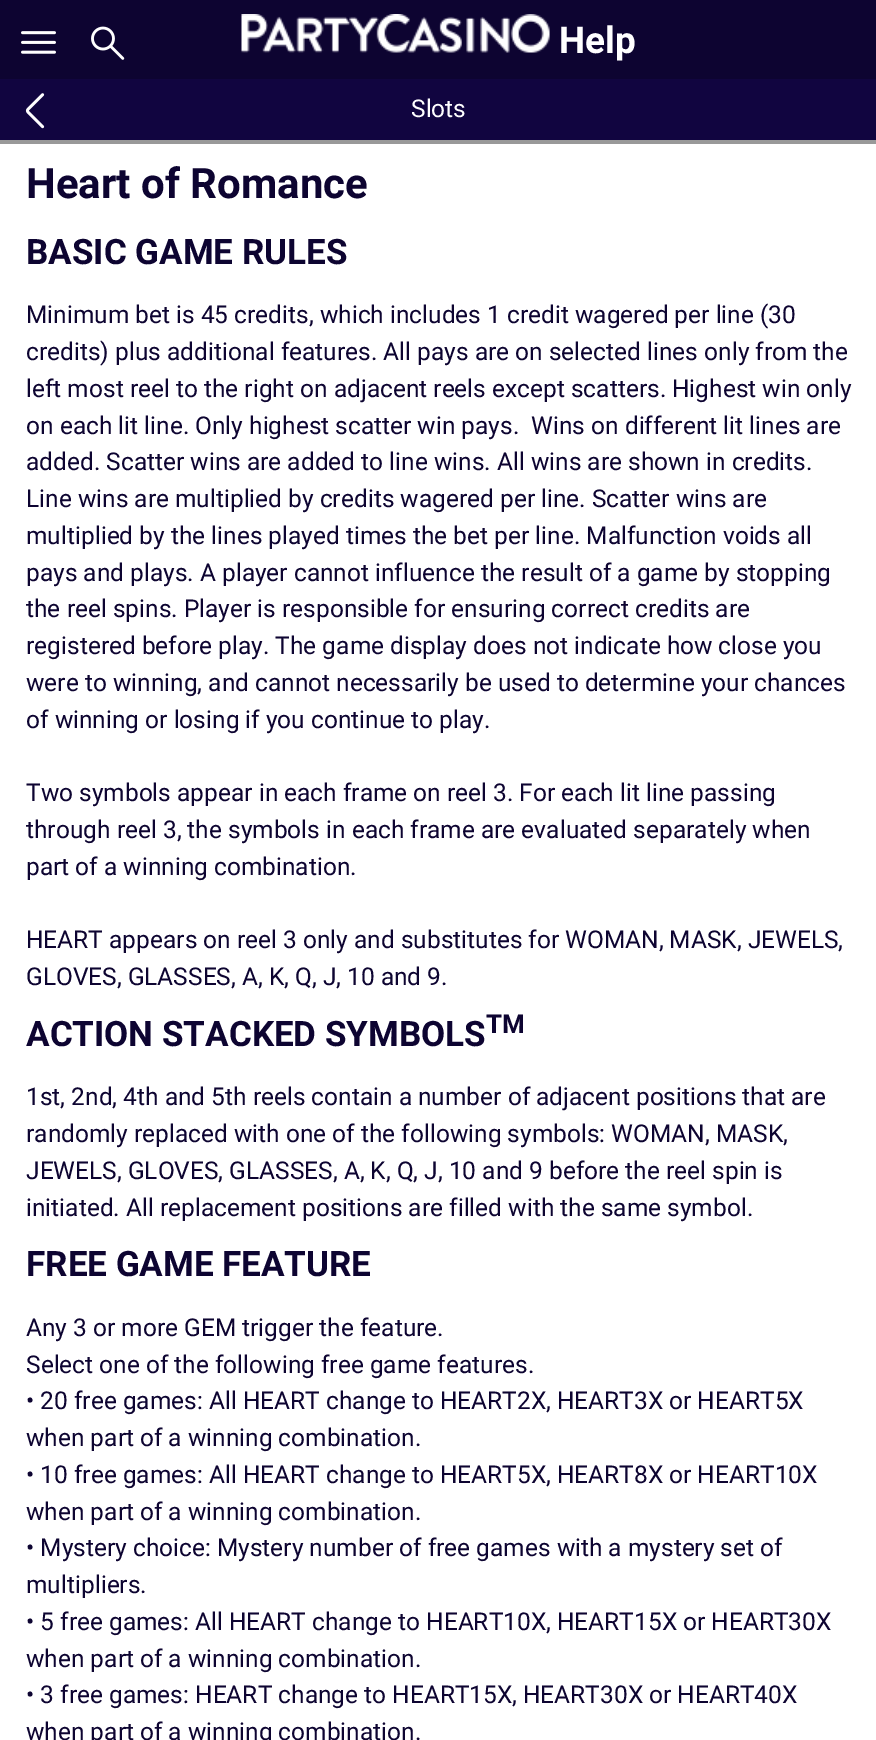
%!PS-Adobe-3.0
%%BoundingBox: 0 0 876 1740
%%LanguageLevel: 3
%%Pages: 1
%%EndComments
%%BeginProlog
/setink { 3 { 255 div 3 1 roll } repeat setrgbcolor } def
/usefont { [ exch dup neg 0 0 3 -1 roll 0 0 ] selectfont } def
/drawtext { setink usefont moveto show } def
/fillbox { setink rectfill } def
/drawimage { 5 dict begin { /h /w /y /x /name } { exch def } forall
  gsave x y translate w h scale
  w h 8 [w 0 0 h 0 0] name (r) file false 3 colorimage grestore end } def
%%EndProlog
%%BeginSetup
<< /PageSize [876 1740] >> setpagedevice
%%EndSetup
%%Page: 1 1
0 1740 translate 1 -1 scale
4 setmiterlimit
0 0 876 1740 255 255 255 fillbox
0 0 876 79 13 4 49 fillbox
(assets/img1.rgb) 21 31 35 23 drawimage
(assets/img2.rgb) 91 26 34 34 drawimage
(assets/img3.rgb) 241 14 309 39 drawimage
(Help) 559 53 /Roboto-Bold 37 255 255 255 drawtext
0 79 876 61 17 5 64 fillbox
(assets/img4.rgb) 25 93 20 36 drawimage
0 140 876 4 153 153 153 fillbox
(Slots) 411 117 /Roboto-Regular 24.5 255 255 255 drawtext
(Heart of Romance) 26 198 /Roboto-Bold 42 13 4 49 drawtext
(BASIC GAME RULES) 26 264 /Roboto-Bold 35 13 4 49 drawtext
(Minimum bet is 45 credits, which includes 1 credit wagered per line \(30) 26 323 /Roboto-Regular 24.5 13 4 49 drawtext
(credits\) plus additional features. All pays are on selected lines only from the) 26 360 /Roboto-Regular 24.5 13 4 49 drawtext
(left most reel to the right on adjacent reels except scatters. Highest win only) 26 397 /Roboto-Regular 24.5 13 4 49 drawtext
(on each lit line. Only highest scatter win pays.  Wins on different lit lines are) 26 434 /Roboto-Regular 24.5 13 4 49 drawtext
(added. Scatter wins are added to line wins. All wins are shown in credits.) 26 470 /Roboto-Regular 24.5 13 4 49 drawtext
(Line wins are multiplied by credits wagered per line. Scatter wins are) 26 507 /Roboto-Regular 24.5 13 4 49 drawtext
(multiplied by the lines played times the bet per line. Malfunction voids all) 26 544 /Roboto-Regular 24.5 13 4 49 drawtext
(pays and plays. A player cannot influence the result of a game by stopping) 26 581 /Roboto-Regular 24.5 13 4 49 drawtext
(the reel spins. Player is responsible for ensuring correct credits are) 26 617 /Roboto-Regular 24.5 13 4 49 drawtext
(registered before play. The game display does not indicate how close you) 26 654 /Roboto-Regular 24.5 13 4 49 drawtext
(were to winning, and cannot necessarily be used to determine your chances) 26 691 /Roboto-Regular 24.5 13 4 49 drawtext
(of winning or losing if you continue to play.) 26 728 /Roboto-Regular 24.5 13 4 49 drawtext
(Two symbols appear in each frame on reel 3. For each lit line passing) 26 801 /Roboto-Regular 24.5 13 4 49 drawtext
(through reel 3, the symbols in each frame are evaluated separately when) 26 838 /Roboto-Regular 24.5 13 4 49 drawtext
(part of a winning combination.) 26 875 /Roboto-Regular 24.5 13 4 49 drawtext
(HEART appears on reel 3 only and substitutes for WOMAN, MASK, JEWELS,) 26 948 /Roboto-Regular 24.5 13 4 49 drawtext
(GLOVES, GLASSES, A, K, Q, J, 10 and 9.) 26 985 /Roboto-Regular 24.5 13 4 49 drawtext
(ACTION STACKED SYMBOLS) 26 1046 /Roboto-Bold 35 13 4 49 drawtext
(TM) 486 1033 /Roboto-Bold 26 13 4 49 drawtext
(1st, 2nd, 4th and 5th reels contain a number of adjacent positions that are) 26 1105 /Roboto-Regular 24.5 13 4 49 drawtext
(randomly replaced with one of the following symbols: WOMAN, MASK,) 26 1142 /Roboto-Regular 24.5 13 4 49 drawtext
(JEWELS, GLOVES, GLASSES, A, K, Q, J, 10 and 9 before the reel spin is) 26 1179 /Roboto-Regular 24.5 13 4 49 drawtext
(initiated. All replacement positions are filled with the same symbol.) 26 1216 /Roboto-Regular 24.5 13 4 49 drawtext
(FREE GAME FEATURE) 26 1276 /Roboto-Bold 35 13 4 49 drawtext
(Any 3 or more GEM trigger the feature.) 26 1336 /Roboto-Regular 24.5 13 4 49 drawtext
(Select one of the following free game features.) 26 1373 /Roboto-Regular 24.5 13 4 49 drawtext
(• 20 free games: All HEART change to HEART2X, HEART3X or HEART5X) 26 1409 /Roboto-Regular 24.5 13 4 49 drawtext
(when part of a winning combination.) 26 1446 /Roboto-Regular 24.5 13 4 49 drawtext
(• 10 free games: All HEART change to HEART5X, HEART8X or HEART10X) 26 1483 /Roboto-Regular 24.5 13 4 49 drawtext
(when part of a winning combination.) 26 1520 /Roboto-Regular 24.5 13 4 49 drawtext
(• Mystery choice: Mystery number of free games with a mystery set of) 26 1556 /Roboto-Regular 24.5 13 4 49 drawtext
(multipliers.) 26 1593 /Roboto-Regular 24.5 13 4 49 drawtext
(• 5 free games: All HEART change to HEART10X, HEART15X or HEART30X) 26 1630 /Roboto-Regular 24.5 13 4 49 drawtext
(when part of a winning combination.) 26 1667 /Roboto-Regular 24.5 13 4 49 drawtext
(• 3 free games: HEART change to HEART15X, HEART30X or HEART40X) 26 1703 /Roboto-Regular 24.5 13 4 49 drawtext
(when part of a winning combination.) 26 1740 /Roboto-Regular 24.5 13 4 49 drawtext
showpage
%%EOF
